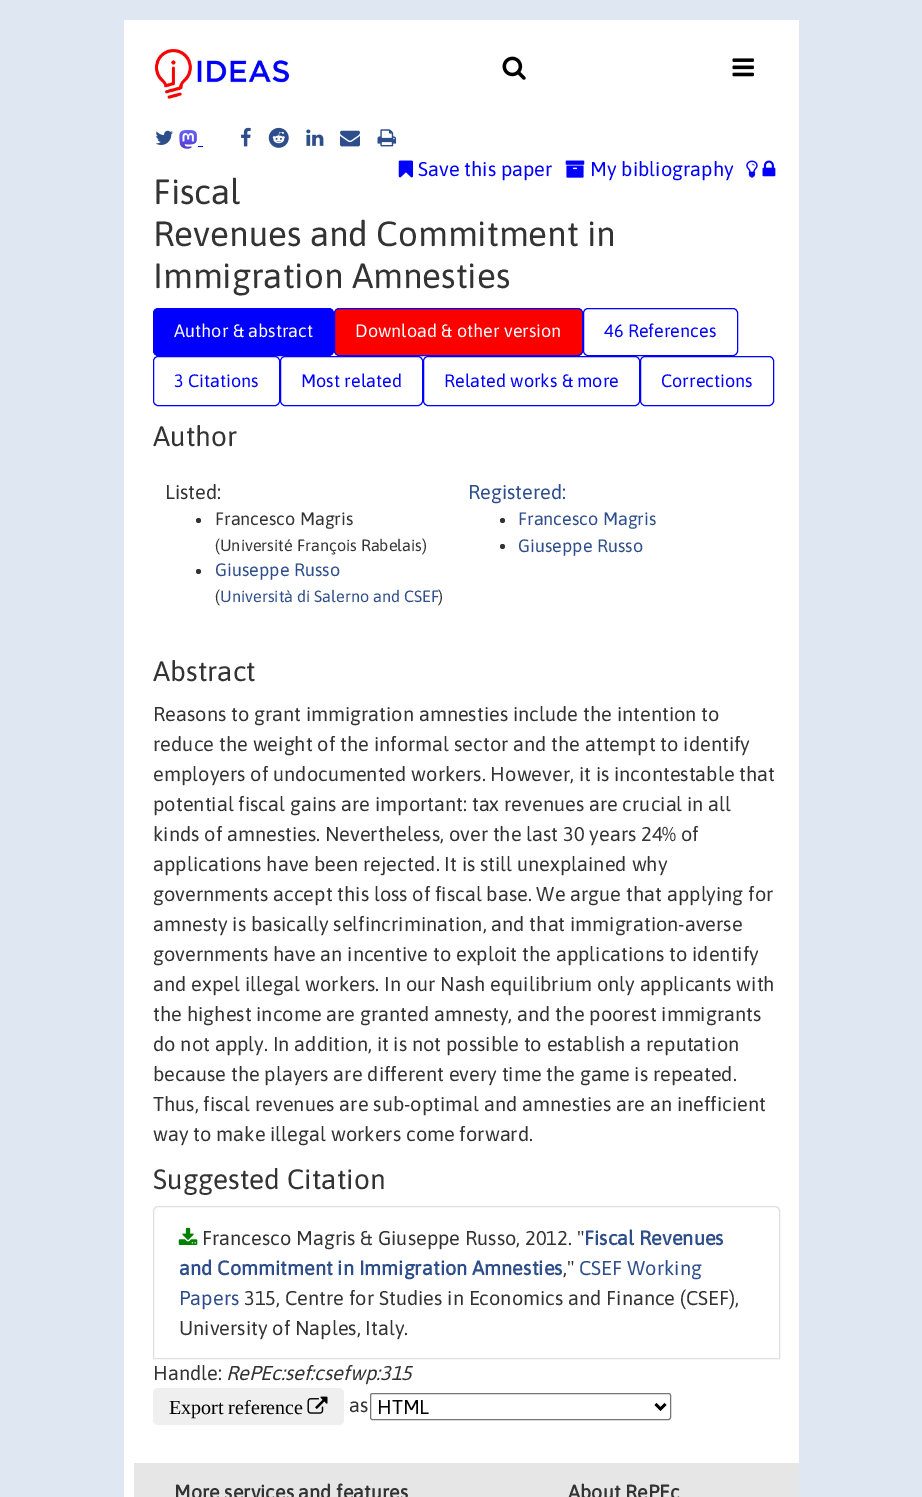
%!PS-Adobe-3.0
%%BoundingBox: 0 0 922 1497
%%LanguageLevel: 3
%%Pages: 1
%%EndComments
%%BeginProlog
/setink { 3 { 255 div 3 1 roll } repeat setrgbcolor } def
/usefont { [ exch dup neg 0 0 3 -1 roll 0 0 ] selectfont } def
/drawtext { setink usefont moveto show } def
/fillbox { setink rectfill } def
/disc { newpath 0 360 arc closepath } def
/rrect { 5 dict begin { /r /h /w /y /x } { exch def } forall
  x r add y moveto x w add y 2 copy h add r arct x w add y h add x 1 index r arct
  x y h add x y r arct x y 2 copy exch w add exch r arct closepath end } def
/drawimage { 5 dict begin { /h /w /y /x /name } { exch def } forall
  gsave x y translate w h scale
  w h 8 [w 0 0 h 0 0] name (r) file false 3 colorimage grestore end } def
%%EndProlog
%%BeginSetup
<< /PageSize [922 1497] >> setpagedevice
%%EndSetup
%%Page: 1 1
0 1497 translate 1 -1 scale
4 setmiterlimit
0 0 922 1497 223 231 242 fillbox
124 20 675 1477 255 255 255 fillbox
(assets/img1.rgb) 154 49 137 50 drawimage
(assets/img2.rgb) 502 56 24 24 drawimage
(assets/img3.rgb) 732 58 22 19 drawimage
(assets/img4.rgb) 155 130 18 15 drawimage
(assets/img5.rgb) 179 130 18 19 drawimage
198 146 5 1 0 0 255 fillbox
(assets/img6.rgb) 241 127 10 20 drawimage
(assets/img7.rgb) 268 127 21 21 drawimage
(assets/img8.rgb) 306 129 18 17 drawimage
(assets/img9.rgb) 340 130 20 17 drawimage
(assets/img10.rgb) 377 129 20 18 drawimage
(assets/img11.rgb) 398 160 16 18 drawimage
(Save this paper) 418 176 /Asap-Regular 20 0 0 252 drawtext
(assets/img12.rgb) 565 160 20 18 drawimage
(My bibliography) 590 176 /Asap-Regular 20 0 0 252 drawtext
(assets/img13.rgb) 746 160 12 18 drawimage
(assets/img14.rgb) 762 160 14 17 drawimage
(Fiscal) 153 204 /Asap-Regular 35 51 51 51 drawtext
(Revenues and Commitment in) 153 246 /Asap-Regular 35 51 51 51 drawtext
(Immigration Amnesties) 153 288 /Asap-Regular 35 51 51 51 drawtext
0 0 252 setink
153.5 308.5 180 47 4.5 rrect gsave fill grestore
stroke
(Author & abstract) 174 337 /Asap-Regular 18 255 255 255 drawtext
252 0 0 setink
334.5 308.5 248 47 4.5 rrect gsave fill grestore
0 0 252 setink
stroke
(Download & other version) 355 337 /Asap-Regular 18 255 255 255 drawtext
0 0 252 setink
583.5 308.5 154 47 4.5 rrect stroke
(46 References) 604 337 /Asap-Regular 18 0 0 252 drawtext
153.5 356.5 126 49 4.5 rrect stroke
(3 Citations) 174 387 /Asap-Regular 18 0 0 252 drawtext
280.5 356.5 142 49 4.5 rrect stroke
(Most related) 301 387 /Asap-Regular 18 0 0 252 drawtext
423.5 356.5 216 49 4.5 rrect stroke
(Related works & more) 444 387 /Asap-Regular 18 0 0 252 drawtext
640.5 356.5 133 49 4.5 rrect stroke
(Corrections) 661 387 /Asap-Regular 18 0 0 252 drawtext
(Author) 153 446 /Asap-Regular 28 51 51 51 drawtext
(Listed:) 165 499 /Asap-Regular 20 51 51 51 drawtext
198.5 520.5 2.5 disc fill
(Francesco Magris) 215 525 /Asap-Regular 18 51 51 51 drawtext
(\(Université François Rabelais\)) 215 551 /Asap-Regular 16.25 51 51 51 drawtext
198.5 571.5 2.5 disc fill
(Giuseppe Russo) 215 576 /Asap-Regular 18 45 78 139 drawtext
(\() 215 602 /Asap-Regular 16.25 51 51 51 drawtext
(Università di Salerno and CSEF) 220 602 /Asap-Regular 16.25 45 78 139 drawtext
(\)) 438 602 /Asap-Regular 16.25 51 51 51 drawtext
(Registered:) 468 499 /Asap-Regular 20 45 78 139 drawtext
51 51 51 setink
502.5 520.5 2.5 disc fill
(Francesco Magris) 518 525 /Asap-Regular 18 45 78 139 drawtext
51 51 51 setink
502.5 546.5 2.5 disc fill
(Giuseppe Russo) 518 552 /Asap-Regular 18 45 78 139 drawtext
(Abstract) 153 681 /Asap-Regular 28 51 51 51 drawtext
(Reasons to grant immigration amnesties include the intention to) 153 721 /Asap-Regular 20 51 51 51 drawtext
(reduce the weight of the informal sector and the attempt to identify) 153 751 /Asap-Regular 20 51 51 51 drawtext
(employers of undocumented workers. However, it is incontestable that) 153 781 /Asap-Regular 20 51 51 51 drawtext
(potential fiscal gains are important: tax revenues are crucial in all) 153 811 /Asap-Regular 20 51 51 51 drawtext
(kinds of amnesties. Nevertheless, over the last 30 years 24% of) 153 841 /Asap-Regular 20 51 51 51 drawtext
(applications have been rejected. It is still unexplained why) 153 871 /Asap-Regular 20 51 51 51 drawtext
(governments accept this loss of fiscal base. We argue that applying for) 153 901 /Asap-Regular 20 51 51 51 drawtext
(amnesty is basically selfincrimination, and that immigration-averse) 153 931 /Asap-Regular 20 51 51 51 drawtext
(governments have an incentive to exploit the applications to identify) 153 961 /Asap-Regular 20 51 51 51 drawtext
(and expel illegal workers. In our Nash equilibrium only applicants with) 153 991 /Asap-Regular 20 51 51 51 drawtext
(the highest income are granted amnesty, and the poorest immigrants) 153 1021 /Asap-Regular 20 51 51 51 drawtext
(do not apply. In addition, it is not possible to establish a reputation) 153 1051 /Asap-Regular 20 51 51 51 drawtext
(because the players are different every time the game is repeated.) 153 1081 /Asap-Regular 20 51 51 51 drawtext
(Thus, fiscal revenues are sub-optimal and amnesties are an inefficient) 153 1111 /Asap-Regular 20 51 51 51 drawtext
(way to make illegal workers come forward.) 153 1141 /Asap-Regular 20 51 51 51 drawtext
(Suggested Citation) 153 1189 /Asap-Regular 28 51 51 51 drawtext
223 223 223 setink
158 1206.5 moveto 775 1206.5 lineto 777.5 1206.5 779.5 1208.5 779.5 1211 curveto 779.5 1358.5 lineto 153.5 1358.5 lineto 153.5 1211 lineto 153.5 1208.5 155.5 1206.5 158 1206.5 curveto closepath stroke
(assets/img15.rgb) 178 1227 20 18 drawimage
(Francesco Magris & Giuseppe Russo, 2012. ") 202 1245 /Asap-Regular 20 51 51 51 drawtext
(Fiscal Revenues) 584 1245 /Asap-Bold 20 45 78 139 drawtext
(and Commitment in Immigration Amnesties) 179 1275 /Asap-Bold 20 45 78 139 drawtext
(,") 563 1275 /Asap-Regular 20 51 51 51 drawtext
(CSEF Working) 579 1275 /Asap-Regular 20 45 78 139 drawtext
(Papers) 179 1305 /Asap-Regular 20 45 78 139 drawtext
(315, Centre for Studies in Economics and Finance \(CSEF\),) 244 1305 /Asap-Regular 20 51 51 51 drawtext
(University of Naples, Italy.) 179 1335 /Asap-Regular 20 51 51 51 drawtext
(Handle:) 153 1380 /Asap-Regular 20 51 51 51 drawtext
(RePEc:sef:csefwp:315) 226 1380 /Asap-Italic 20 51 51 51 drawtext
239 239 239 setink
153 1388 191 37 5 rrect fill
(Export reference) 169 1414 /LiberationSerif-Regular 20 0 0 0 drawtext
(assets/img16.rgb) 307 1396 21 18 drawimage
(as) 349 1412 /Asap-Regular 20 51 51 51 drawtext
118 118 118 setink
370.5 1393.5 300 26 2 rrect stroke
0 0 0 setink
2.5 setlinewidth
655.5 1404 moveto 660.5 1409 lineto 665.5 1404 lineto stroke
(HTML) 377 1414 /Asap-Regular 20 0 0 0 drawtext
134 1463 665 34 230 230 230 fillbox
(More services and features) 174 1499 /Asap-Bold 19.75 51 51 51 drawtext
(About RePEc) 568 1499 /Asap-Bold 19.75 51 51 51 drawtext
showpage
%%EOF
